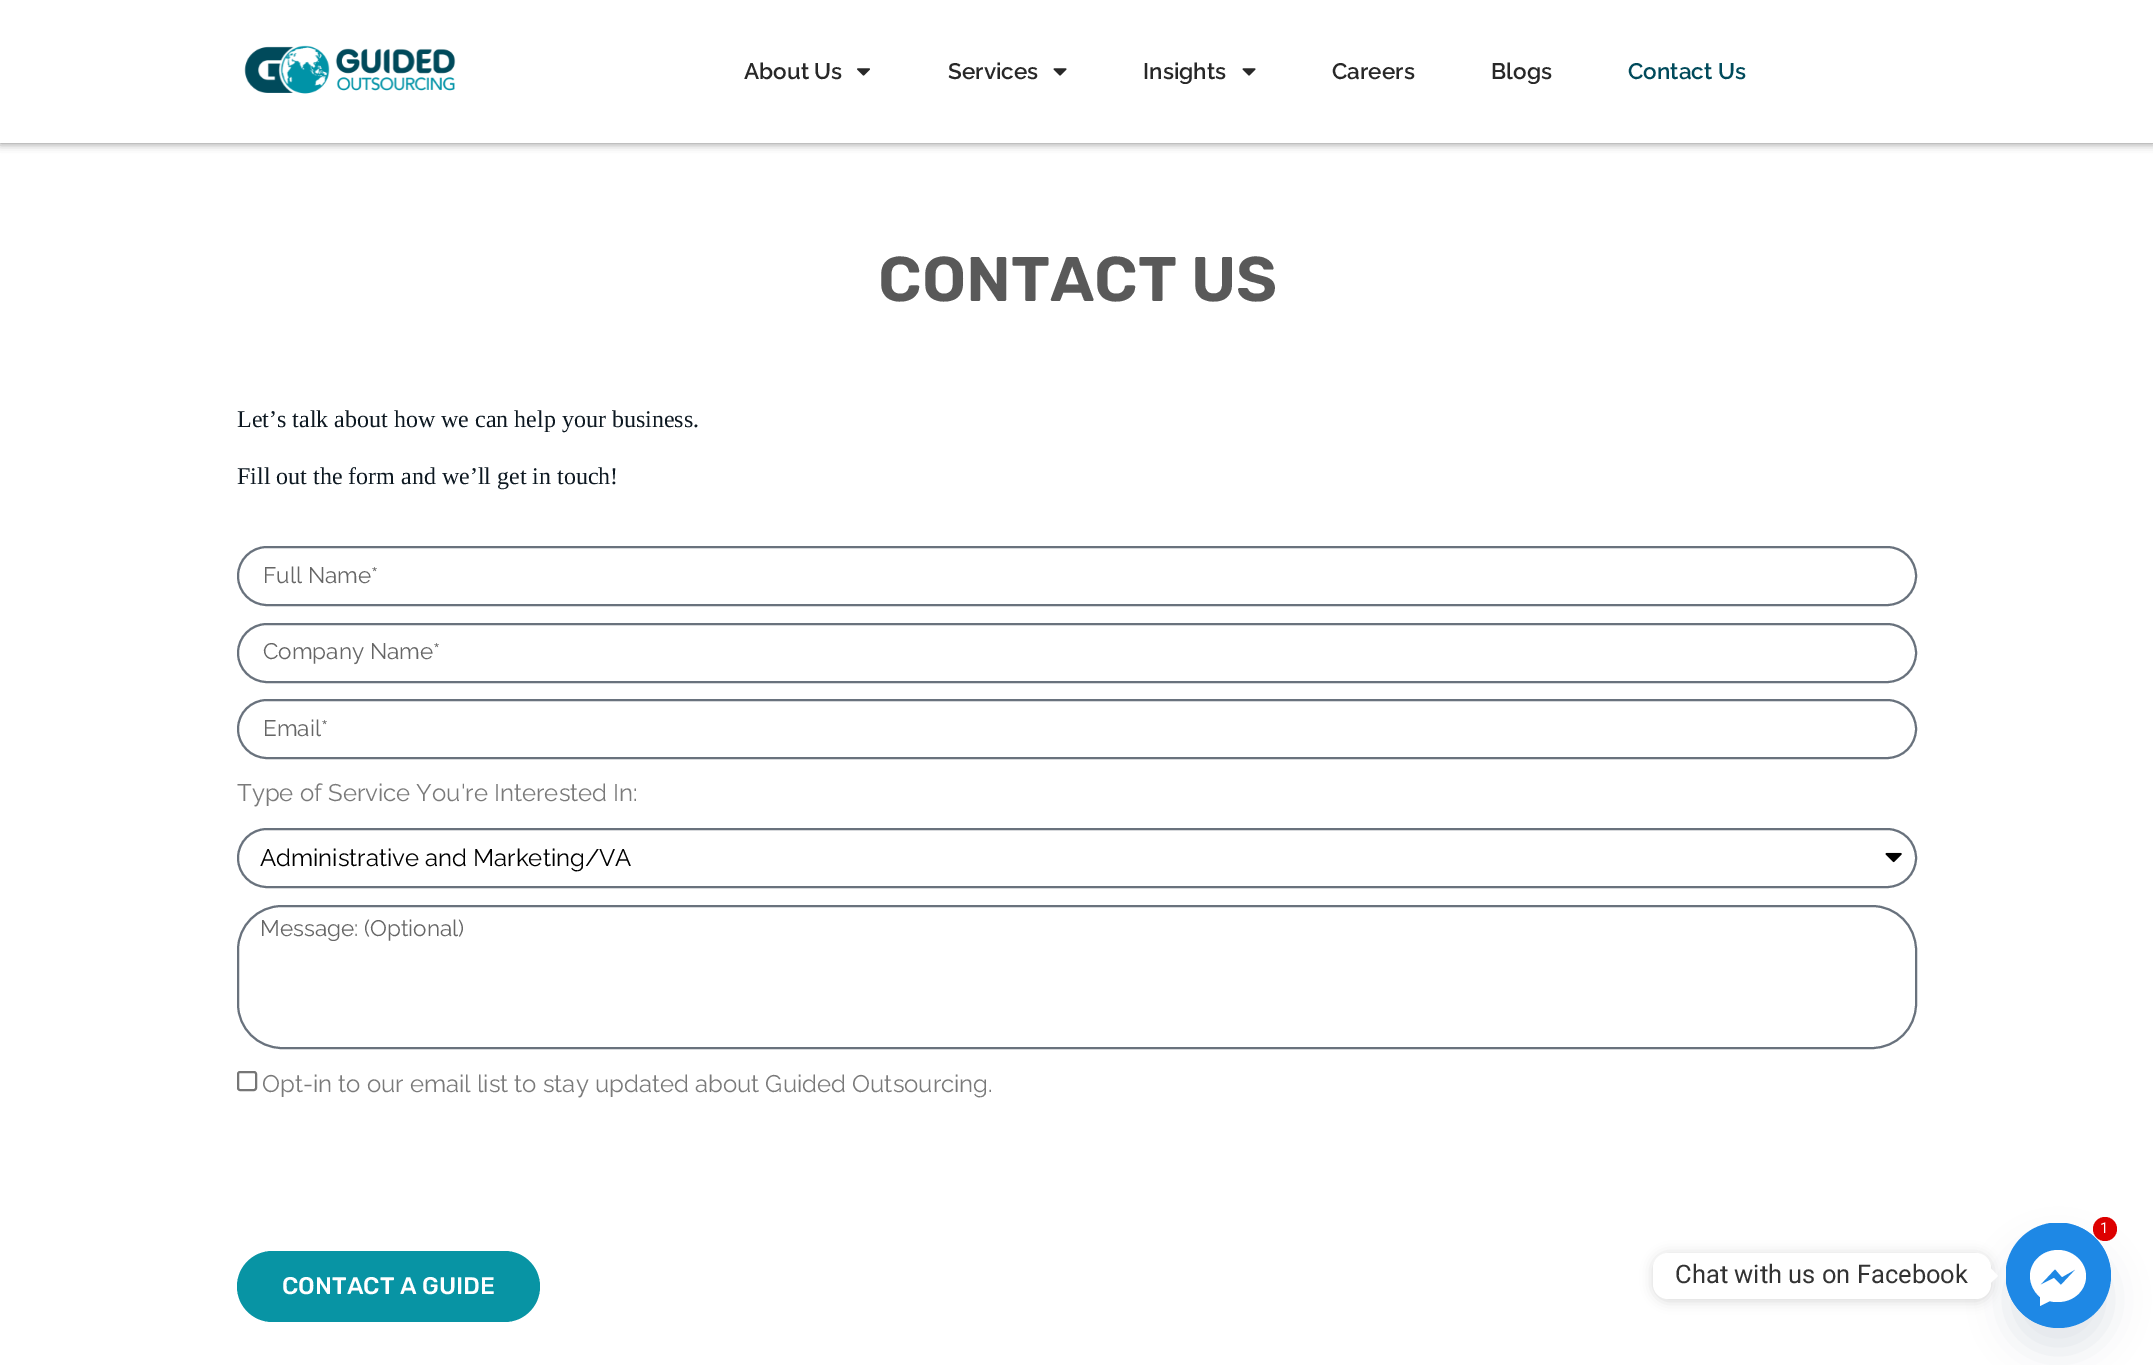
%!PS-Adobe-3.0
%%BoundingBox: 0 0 2153 1365
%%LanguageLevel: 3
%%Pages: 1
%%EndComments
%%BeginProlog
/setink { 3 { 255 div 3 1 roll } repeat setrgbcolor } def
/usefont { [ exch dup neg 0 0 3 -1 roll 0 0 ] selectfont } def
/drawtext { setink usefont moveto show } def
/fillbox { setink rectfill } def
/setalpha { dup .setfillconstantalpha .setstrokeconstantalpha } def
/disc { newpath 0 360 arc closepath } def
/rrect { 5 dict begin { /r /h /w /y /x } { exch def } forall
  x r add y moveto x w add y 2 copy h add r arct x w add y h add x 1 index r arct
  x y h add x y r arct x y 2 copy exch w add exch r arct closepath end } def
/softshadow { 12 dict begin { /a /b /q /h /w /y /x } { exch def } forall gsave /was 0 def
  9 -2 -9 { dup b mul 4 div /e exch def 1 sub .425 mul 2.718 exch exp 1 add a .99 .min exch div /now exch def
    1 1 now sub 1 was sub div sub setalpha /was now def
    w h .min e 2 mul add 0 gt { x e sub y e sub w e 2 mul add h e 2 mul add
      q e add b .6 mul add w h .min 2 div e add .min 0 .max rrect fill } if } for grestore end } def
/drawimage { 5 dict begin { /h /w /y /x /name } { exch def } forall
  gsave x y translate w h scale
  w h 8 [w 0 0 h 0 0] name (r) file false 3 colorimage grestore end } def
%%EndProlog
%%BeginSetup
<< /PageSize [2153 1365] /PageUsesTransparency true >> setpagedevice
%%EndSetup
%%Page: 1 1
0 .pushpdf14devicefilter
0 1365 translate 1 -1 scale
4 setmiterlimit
0 0 2153 1365 255 255 255 fillbox
0 0 0 setink
0 0 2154 143 0 4.5 0.5 softshadow
0 0 2153 143 255 255 255 fillbox
(assets/img1.rgb) 244 45 212 49 drawimage
(About Us) 744 79 /Raleway-SemiBold 22.5 40 40 40 drawtext
(assets/img2.rgb) 857 68 13 8 drawimage
(Services) 948 79 /Raleway-SemiBold 22.5 40 40 40 drawtext
(assets/img3.rgb) 1053 68 14 8 drawimage
(Insights) 1143 79 /Raleway-SemiBold 22.5 40 40 40 drawtext
(assets/img3.rgb) 1242 68 14 8 drawimage
(Careers) 1332 79 /Raleway-SemiBold 22.5 40 40 40 drawtext
(Blogs) 1491 79 /Raleway-SemiBold 22.5 40 40 40 drawtext
(Contact Us) 1628 79 /Raleway-SemiBold 22.5 0 74 91 drawtext
(CONTACT US) 878 301 /Rubik-SemiBold 63 89 89 89 drawtext
(Let’s talk about how we can help your business.) 237 427 /LiberationSerif-Regular 24 13 24 33 drawtext
(Fill out the form and we’ll get in touch!) 237 484 /LiberationSerif-Regular 24 13 24 33 drawtext
105 114 125 setink
2 setlinewidth
238 547 1678 58 29 rrect stroke
(Full Name*) 263 583 /Raleway-Regular 22.5 102 102 102 drawtext
105 114 125 setink
238 624 1678 58 29 rrect stroke
(Company Name*) 263 659 /Raleway-Regular 22.5 102 102 102 drawtext
105 114 125 setink
238 700 1678 58 29 rrect stroke
(Email*) 263 736 /Raleway-Regular 22.5 102 102 102 drawtext
(Type of Service You're Interested In:) 237 801 /Raleway-Regular 24 122 122 122 drawtext
105 114 125 setink
238 829 1678 58 29 rrect stroke
(Administrative and Marketing/VA) 260 866 /Raleway-Regular 24 0 0 0 drawtext
(assets/img4.rgb) 1885 852 17 11 drawimage
105 114 125 setink
238 906 1678 142 44 rrect stroke
(Message: \(Optional\)) 260 936 /Raleway-Regular 22.5 102 102 102 drawtext
118 118 118 setink
238 1072 18 18 2 rrect stroke
(Opt-in to our email list to stay updated about Guided Outsourcing.) 262 1092 /Raleway-Regular 24 122 122 122 drawtext
8 148 164 setink
237 1251 303 71 35.5 rrect fill
(CONTACT A GUIDE) 282 1294 /Rubik-Medium 24 255 255 255 drawtext
73 104 126 setink
2006 1247 105 105 52.5 18 0.16 softshadow
30 136 229 setink
2058.5 1275.5 52.5 disc fill
gsave
2006 1223 105 105 rectclip
2058 1275 52.5 disc fill
grestore
221 0 0 setink
2105 1229 12 disc fill
(1) 2100 1233 /Roboto-Regular 15 255 255 255 drawtext
2030 1276 moveto 2030 1262 2042 1250 2058 1250 curveto 2073 1250 2086 1262 2086 1276 curveto 2086 1291 2073 1302 2058 1302 curveto 2055 1302 2052 1302 2050 1301 curveto 2040 1306 lineto 2040 1297 lineto 2034 1292 2030 1284 2030 1276 curveto closepath 2054 1278 moveto 2061 1285 lineto 2076 1269 lineto 2062 1277 lineto 2055 1269 lineto 2040 1285 lineto closepath eofill
0 0 0 setink
1653 1254 338 47 15 6 0.15 softshadow
255 255 255 setink
1653 1253 338 46 15 rrect fill
(Chat with us on Facebook) 1675 1283 /Roboto-Regular 25.5 51 51 51 drawtext
255 255 255 setink
1990.5 1283 moveto 1990.5 1268 lineto 1998 1276 lineto closepath fill
.poppdf14devicefilter showpage
%%EOF
